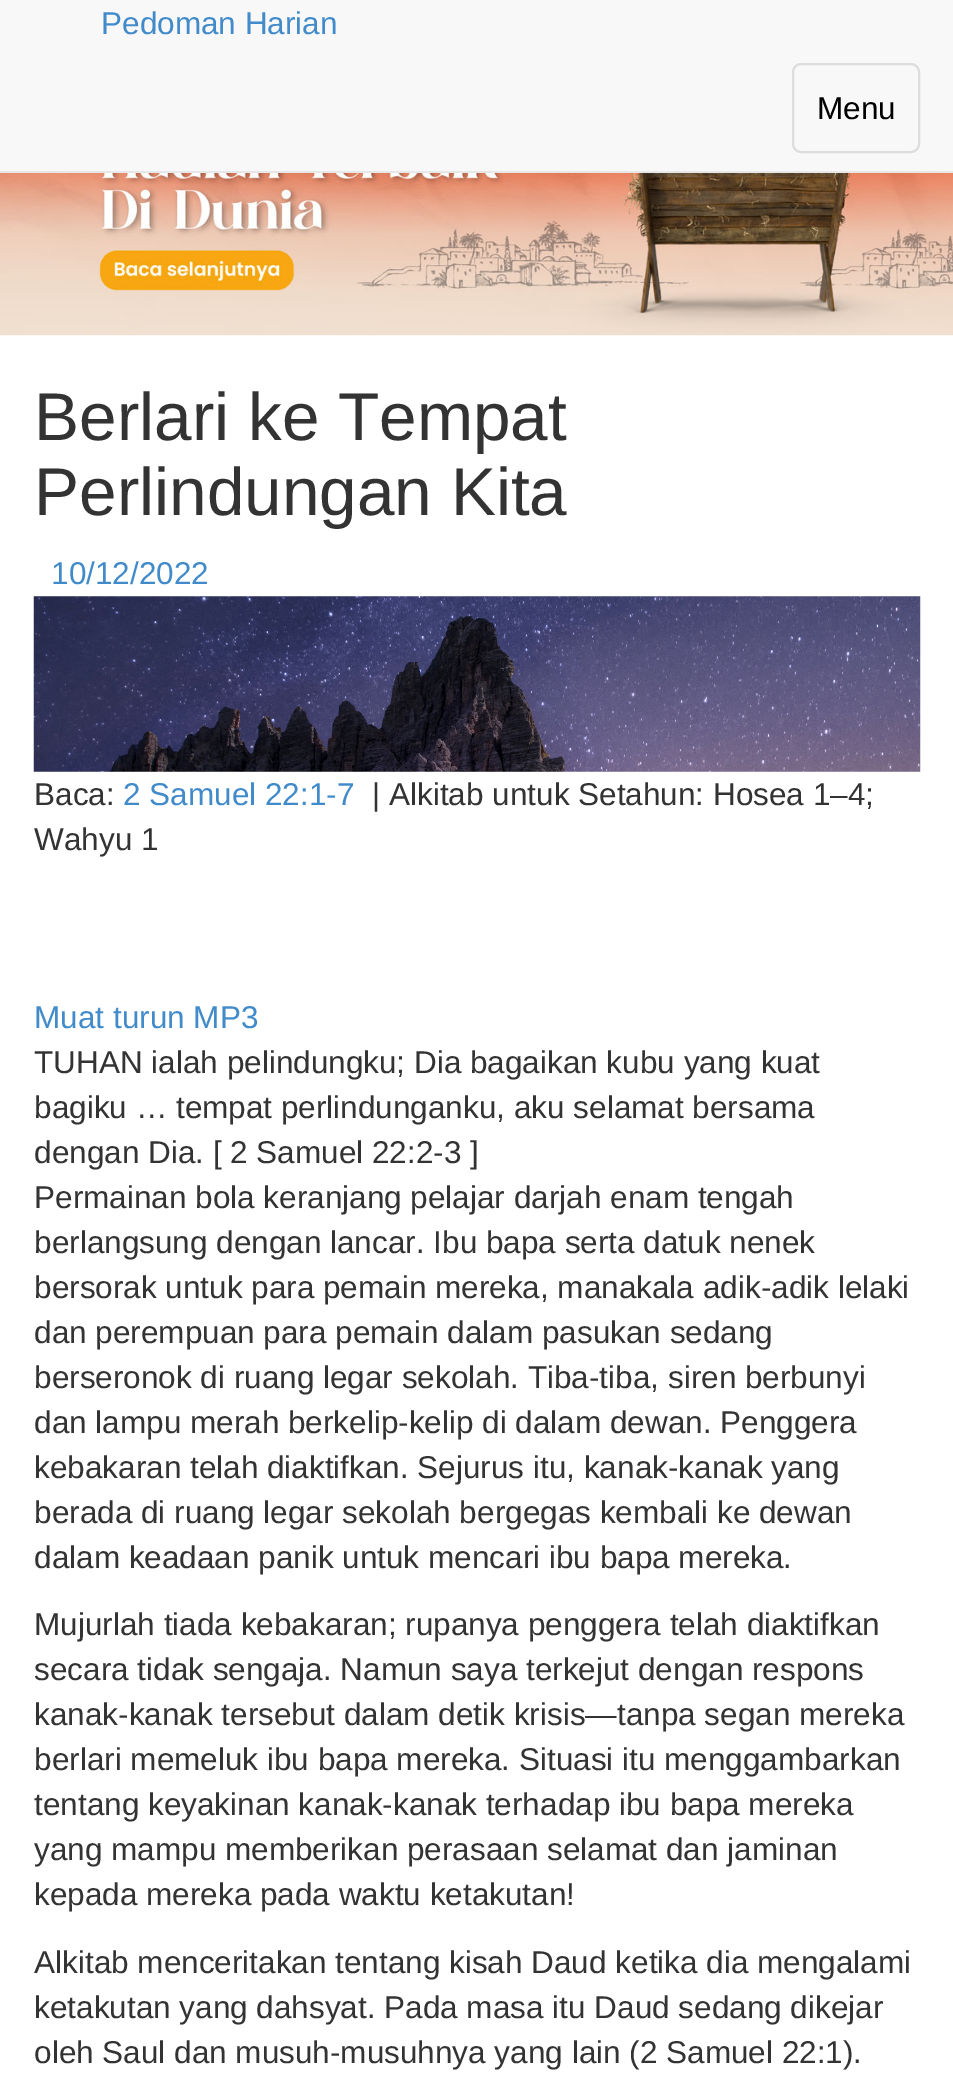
%!PS-Adobe-3.0
%%BoundingBox: 0 0 953 2100
%%LanguageLevel: 3
%%Pages: 1
%%EndComments
%%BeginProlog
/setink { 3 { 255 div 3 1 roll } repeat setrgbcolor } def
/usefont { [ exch dup neg 0 0 3 -1 roll 0 0 ] selectfont } def
/drawtext { setink usefont moveto show } def
/fillbox { setink rectfill } def
/rrect { 5 dict begin { /r /h /w /y /x } { exch def } forall
  x r add y moveto x w add y 2 copy h add r arct x w add y h add x 1 index r arct
  x y h add x y r arct x y 2 copy exch w add exch r arct closepath end } def
/drawimage { 5 dict begin { /h /w /y /x /name } { exch def } forall
  gsave x y translate w h scale
  w h 8 [w 0 0 h 0 0] name (r) file false 3 colorimage grestore end } def
%%EndProlog
%%BeginSetup
<< /PageSize [953 2100] >> setpagedevice
%%EndSetup
%%Page: 1 1
0 2100 translate 1 -1 scale
4 setmiterlimit
0 0 953 2100 255 255 255 fillbox
0 0 953 171 248 248 248 fillbox
0 171 953 2 231 231 231 fillbox
(Pedoman Harian) 101 34 /LiberationSans-Regular 31.5 66 139 202 drawtext
221 221 221 setink
2 setlinewidth
793 64 126 88 8 rrect stroke
(Menu) 817 119 /LiberationSans-Regular 31.5 0 0 0 drawtext
(assets/img1.rgb) 0 173 953 163 drawimage
(Berlari ke Tempat) 34 440 /LiberationSans-Regular 67.5 51 51 51 drawtext
(Perlindungan Kita) 34 515 /LiberationSans-Regular 67.5 51 51 51 drawtext
(10/12/2022) 51 584 /LiberationSans-Regular 31.5 66 139 202 drawtext
(assets/img2.rgb) 33 596 888 176 drawimage
(Baca:) 34 805 /LiberationSans-Regular 31.5 51 51 51 drawtext
(2 Samuel 22:1-7) 123 805 /LiberationSans-Regular 31.5 66 139 202 drawtext
(| Alkitab untuk Setahun: Hosea 1–4;) 372 805 /LiberationSans-Regular 31.5 51 51 51 drawtext
(Wahyu 1) 34 850 /LiberationSans-Regular 31.5 51 51 51 drawtext
(Muat turun MP3) 34 1028 /LiberationSans-Regular 31.5 66 139 202 drawtext
(TUHAN ialah pelindungku; Dia bagaikan kubu yang kuat) 34 1073 /LiberationSans-Regular 31.5 51 51 51 drawtext
(bagiku … tempat perlindunganku, aku selamat bersama) 34 1118 /LiberationSans-Regular 31.5 51 51 51 drawtext
(dengan Dia. [ 2 Samuel 22:2-3 ]) 34 1163 /LiberationSans-Regular 31.5 51 51 51 drawtext
(Permainan bola keranjang pelajar darjah enam tengah) 34 1208 /LiberationSans-Regular 31.5 51 51 51 drawtext
(berlangsung dengan lancar. Ibu bapa serta datuk nenek) 34 1253 /LiberationSans-Regular 31.5 51 51 51 drawtext
(bersorak untuk para pemain mereka, manakala adik-adik lelaki) 34 1298 /LiberationSans-Regular 31.5 51 51 51 drawtext
(dan perempuan para pemain dalam pasukan sedang) 34 1343 /LiberationSans-Regular 31.5 51 51 51 drawtext
(berseronok di ruang legar sekolah. Tiba-tiba, siren berbunyi) 34 1388 /LiberationSans-Regular 31.5 51 51 51 drawtext
(dan lampu merah berkelip-kelip di dalam dewan. Penggera) 34 1433 /LiberationSans-Regular 31.5 51 51 51 drawtext
(kebakaran telah diaktifkan. Sejurus itu, kanak-kanak yang) 34 1478 /LiberationSans-Regular 31.5 51 51 51 drawtext
(berada di ruang legar sekolah bergegas kembali ke dewan) 34 1523 /LiberationSans-Regular 31.5 51 51 51 drawtext
(dalam keadaan panik untuk mencari ibu bapa mereka.) 34 1568 /LiberationSans-Regular 31.5 51 51 51 drawtext
(Mujurlah tiada kebakaran; rupanya penggera telah diaktifkan) 34 1635 /LiberationSans-Regular 31.5 51 51 51 drawtext
(secara tidak sengaja. Namun saya terkejut dengan respons) 34 1680 /LiberationSans-Regular 31.5 51 51 51 drawtext
(kanak-kanak tersebut dalam detik krisis—tanpa segan mereka) 34 1725 /LiberationSans-Regular 31.5 51 51 51 drawtext
(berlari memeluk ibu bapa mereka. Situasi itu menggambarkan) 34 1770 /LiberationSans-Regular 31.5 51 51 51 drawtext
(tentang keyakinan kanak-kanak terhadap ibu bapa mereka) 34 1815 /LiberationSans-Regular 31.5 51 51 51 drawtext
(yang mampu memberikan perasaan selamat dan jaminan) 34 1860 /LiberationSans-Regular 31.5 51 51 51 drawtext
(kepada mereka pada waktu ketakutan!) 34 1905 /LiberationSans-Regular 31.5 51 51 51 drawtext
(Alkitab menceritakan tentang kisah Daud ketika dia mengalami) 34 1973 /LiberationSans-Regular 31.5 51 51 51 drawtext
(ketakutan yang dahsyat. Pada masa itu Daud sedang dikejar) 34 2018 /LiberationSans-Regular 31.5 51 51 51 drawtext
(oleh Saul dan musuh-musuhnya yang lain \(2 Samuel 22:1\).) 34 2063 /LiberationSans-Regular 31.5 51 51 51 drawtext
showpage
%%EOF
